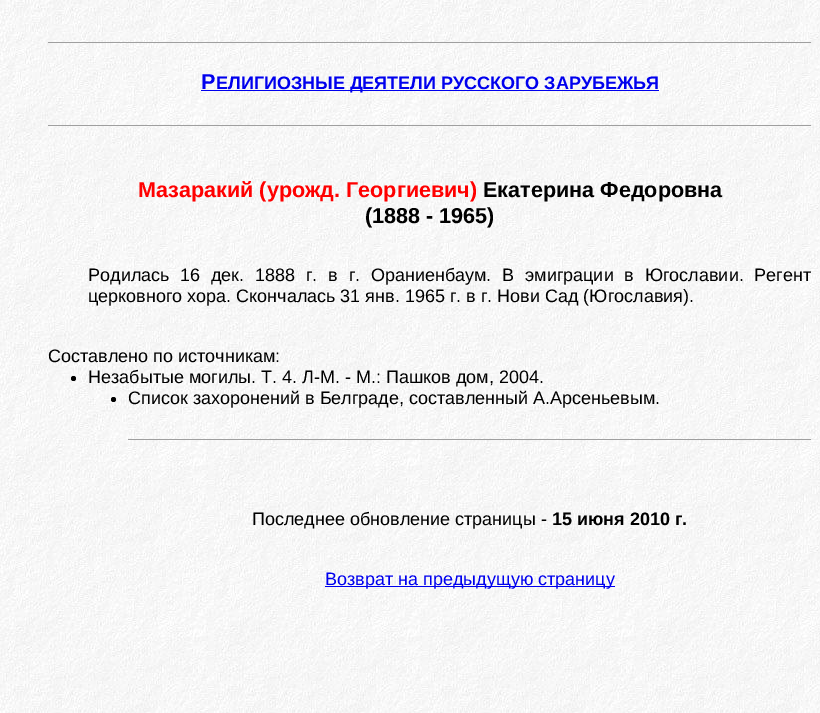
%!PS-Adobe-3.0
%%BoundingBox: 0 0 820 713
%%LanguageLevel: 3
%%Pages: 1
%%EndComments
%%BeginProlog
/setink { 3 { 255 div 3 1 roll } repeat setrgbcolor } def
/usefont { [ exch dup neg 0 0 3 -1 roll 0 0 ] selectfont } def
/drawtext { setink usefont moveto show } def
/fillbox { setink rectfill } def
/disc { newpath 0 360 arc closepath } def
/drawimage { 5 dict begin { /h /w /y /x /name } { exch def } forall
  gsave x y translate w h scale
  w h 8 [w 0 0 h 0 0] name (r) file false 3 colorimage grestore end } def
%%EndProlog
%%BeginSetup
<< /PageSize [820 713] >> setpagedevice
%%EndSetup
%%Page: 1 1
0 713 translate 1 -1 scale
4 setmiterlimit
0 0 820 713 255 255 255 fillbox
(assets/img1.rgb) 0 0 820 713 drawimage
48 42 764 1 159 159 159 fillbox
811 42 1 1 238 238 238 fillbox
(Р) 201 89 /LiberationSans-Bold 21.6 0 0 238 drawtext
201 90 458 1 0 0 238 fillbox
(ЕЛИГИОЗНЫЕ ДЕЯТЕЛИ РУССКОГО ЗАРУБЕЖЬЯ) 216 89 /LiberationSans-Bold 18 0 0 238 drawtext
48 125 764 1 159 159 159 fillbox
811 125 1 1 238 238 238 fillbox
(Мазаракий \(урожд. Георгиевич\)) 138 197 /LiberationSans-Bold 21.6 255 0 0 drawtext
(Екатерина Федоровна) 483 197 /LiberationSans-Bold 21.6 0 0 0 drawtext
(\(1888 - 1965\)) 365 223 /LiberationSans-Bold 21.6 0 0 0 drawtext
/LiberationSans-Regular 18 usefont
88 281 moveto 5.75 0 32 (Родилась 16 дек. 1888 г. в г. Ораниенбаум. В эмиграции в Югославии. Регент) widthshow
(церковного хора. Скончалась 31 янв. 1965 г. в г. Нови Сад \(Югославия\).) 88 302 /LiberationSans-Regular 18 0 0 0 drawtext
(Составлено по источникам:) 48 362 /LiberationSans-Regular 18 0 0 0 drawtext
73.5 378.5 2.5 disc fill
(Незабытые могилы. Т. 4. Л-М. - М.: Пашков дом, 2004.) 88 383 /LiberationSans-Regular 18 0 0 0 drawtext
113.5 399.5 2.5 disc fill
(Список захоронений в Белграде, составленный А.Арсеньевым.) 128 404 /LiberationSans-Regular 18 0 0 0 drawtext
128 439 684 1 159 159 159 fillbox
811 439 1 1 238 238 238 fillbox
(Последнее обновление страницы -) 252 525 /LiberationSans-Regular 18 0 0 0 drawtext
(15 июня 2010 г.) 552 525 /LiberationSans-Bold 18 0 0 0 drawtext
325 586 290 1 0 0 238 fillbox
(Возврат на предыдущую страницу) 325 585 /LiberationSans-Regular 18 0 0 238 drawtext
showpage
%%EOF
